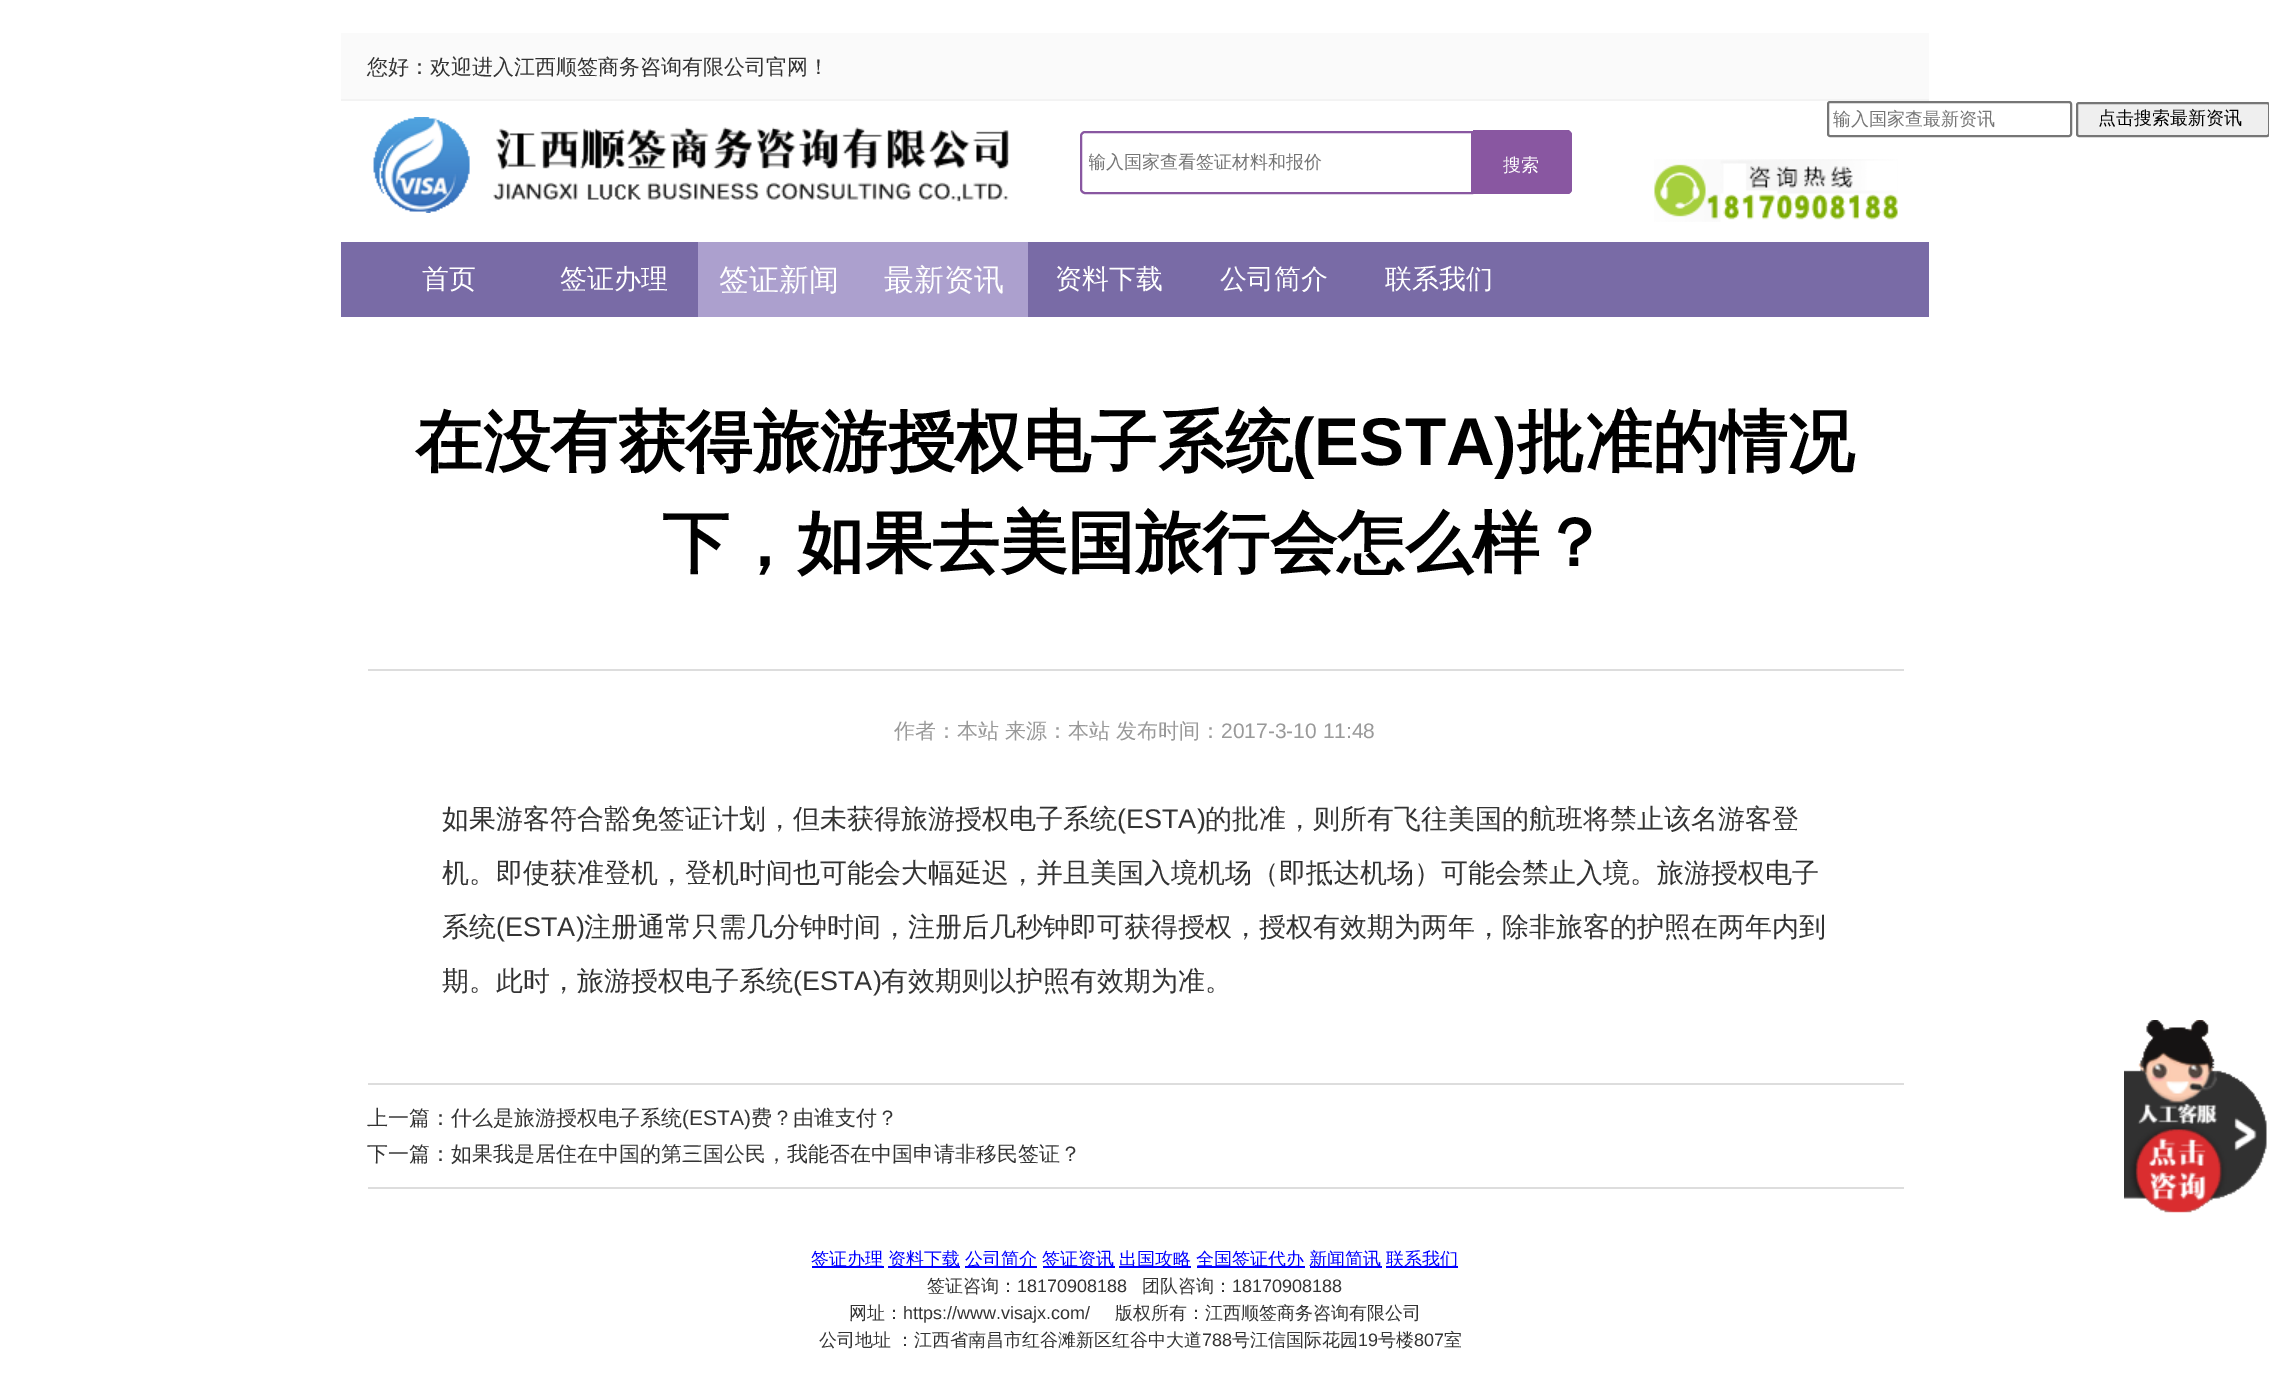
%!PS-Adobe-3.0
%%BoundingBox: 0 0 2269 1393
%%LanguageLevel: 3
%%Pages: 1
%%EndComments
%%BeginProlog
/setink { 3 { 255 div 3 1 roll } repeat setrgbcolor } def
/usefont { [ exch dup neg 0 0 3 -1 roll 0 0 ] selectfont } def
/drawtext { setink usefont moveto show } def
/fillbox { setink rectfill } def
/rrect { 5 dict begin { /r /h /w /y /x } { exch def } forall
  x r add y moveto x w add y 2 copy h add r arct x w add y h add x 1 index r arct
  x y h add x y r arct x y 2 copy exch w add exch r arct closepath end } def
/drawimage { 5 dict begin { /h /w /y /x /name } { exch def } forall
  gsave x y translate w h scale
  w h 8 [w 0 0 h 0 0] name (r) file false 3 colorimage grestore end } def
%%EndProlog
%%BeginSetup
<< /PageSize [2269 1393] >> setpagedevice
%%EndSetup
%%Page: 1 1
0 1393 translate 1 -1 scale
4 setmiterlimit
0 0 2269 1393 255 255 255 fillbox
341 33 1588 66 250 250 250 fillbox
341 99 1588 2 243 243 243 fillbox
(您好：欢迎进入江西顺签商务咨询有限公司官网！) 367 74 /WenQuanYiZenHei-Medium 21 51 51 51 drawtext
118 118 118 setink
2 setlinewidth
1828 102 243 34 2 rrect stroke
(输入国家查最新资讯) 1833 125 /WenQuanYiZenHei-Medium 18 117 117 117 drawtext
239 239 239 setink
2077 103 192 33 2 rrect gsave fill grestore
118 118 118 setink
stroke
(点击搜索最新资讯) 2098 124 /WenQuanYiZenHei-Medium 18 0 0 0 drawtext
(assets/img1.rgb) 373 117 636 96 drawimage
137 87 161 setink
1085 132 moveto 1472 132 lineto 1472 193 lineto 1085 193 lineto 1083 193 1081 191 1081 189 curveto 1081 136 lineto 1081 134 1083 132 1085 132 curveto closepath stroke
gsave
1089 150 375 26 rectclip
(输入国家查看签证材料和报价) 1088 168 /WenQuanYiZenHei-Medium 18 117 117 117 drawtext
grestore
1473 131 moveto 1567 131 lineto 1570 131 1572 133 1572 136 curveto 1572 189 lineto 1572 192 1570 194 1567 194 curveto 1473 194 lineto closepath fill
1473 130 moveto 1568 130 lineto 1570 130 1572 133 1572 135 curveto 1572 189 lineto 1572 191 1570 194 1568 194 curveto 1473 194 lineto closepath 1473 132 moveto 1568 132 lineto 1569 132 1570 133 1570 135 curveto 1570 189 lineto 1570 191 1569 192 1568 192 curveto 1473 192 lineto closepath eofill
(搜索) 1503 171 /WenQuanYiZenHei-Medium 18 255 255 255 drawtext
(assets/img2.rgb) 1654 159 244 63 drawimage
341 242 1588 75 121 107 166 fillbox
(首页) 422 288 /WenQuanYiZenHei-Medium 27 255 255 255 drawtext
(签证办理) 560 288 /WenQuanYiZenHei-Medium 27 255 255 255 drawtext
698 242 330 75 172 160 206 fillbox
(签证新闻) 719 290 /WenQuanYiZenHei-Medium 30 255 255 255 drawtext
(最新资讯) 884 290 /WenQuanYiZenHei-Medium 30 255 255 255 drawtext
(资料下载) 1055 288 /WenQuanYiZenHei-Medium 27 255 255 255 drawtext
(公司简介) 1220 288 /WenQuanYiZenHei-Medium 27 255 255 255 drawtext
(联系我们) 1385 288 /WenQuanYiZenHei-Medium 27 255 255 255 drawtext
368 669 1536 2 221 221 221 fillbox
(在没有获得旅游授权电子系统) 415 465 /WenQuanYiZenHei-Bold 67.5 0 0 0 drawtext
(\(ESTA\)) 1292 465 /LiberationSans-Bold 67.5 0 0 0 drawtext
(批准的情况) 1517 465 /WenQuanYiZenHei-Bold 67.5 0 0 0 drawtext
(下，如果去美国旅行会怎么样？) 662 566 /WenQuanYiZenHei-Bold 67.5 0 0 0 drawtext
(作者：本站) 894 738 /WenQuanYiZenHei-Medium 21 153 153 153 drawtext
(来源：本站) 1005 738 /WenQuanYiZenHei-Medium 21 153 153 153 drawtext
(发布时间：) 1116 738 /WenQuanYiZenHei-Medium 21 153 153 153 drawtext
(2017-3-10 11:48) 1221 738 /LiberationSans-Regular 21 153 153 153 drawtext
(如果游客符合豁免签证计划，但未获得旅游授权电子系统) 442 828 /WenQuanYiZenHei-Medium 27 51 51 51 drawtext
(\(ESTA\)) 1117 828 /LiberationSans-Regular 27 51 51 51 drawtext
(的批准，则所有飞往美国的航班将禁止该名游客登) 1205 828 /WenQuanYiZenHei-Medium 27 51 51 51 drawtext
(机。即使获准登机，登机时间也可能会大幅延迟，并且美国入境机场（即抵达机场）可能会禁止入境。旅游授权电子) 442 882 /WenQuanYiZenHei-Medium 27 51 51 51 drawtext
(系统) 442 936 /WenQuanYiZenHei-Medium 27 51 51 51 drawtext
(\(ESTA\)) 496 936 /LiberationSans-Regular 27 51 51 51 drawtext
(注册通常只需几分钟时间，注册后几秒钟即可获得授权，授权有效期为两年，除非旅客的护照在两年内到) 584 936 /WenQuanYiZenHei-Medium 27 51 51 51 drawtext
(期。此时，旅游授权电子系统) 442 990 /WenQuanYiZenHei-Medium 27 51 51 51 drawtext
(\(ESTA\)) 793 990 /LiberationSans-Regular 27 51 51 51 drawtext
(有效期则以护照有效期为准。) 881 990 /WenQuanYiZenHei-Medium 27 51 51 51 drawtext
368 1083 1536 2 221 221 221 fillbox
368 1187 1536 2 221 221 221 fillbox
(上一篇：什么是旅游授权电子系统) 367 1125 /WenQuanYiZenHei-Medium 21 51 51 51 drawtext
(\(ESTA\)) 682 1125 /LiberationSans-Regular 21 51 51 51 drawtext
(费？由谁支付？) 751 1125 /WenQuanYiZenHei-Medium 21 51 51 51 drawtext
(下一篇：如果我是居住在中国的第三国公民，我能否在中国申请非移民签证？) 367 1161 /WenQuanYiZenHei-Medium 21 51 51 51 drawtext
(assets/img3.rgb) 2124 1020 143 193 drawimage
812 1266 72 2 0 0 255 fillbox
(签证办理) 811 1265 /WenQuanYiZenHei-Medium 18 0 0 255 drawtext
888 1266 72 2 0 0 255 fillbox
(资料下载) 888 1265 /WenQuanYiZenHei-Medium 18 0 0 255 drawtext
965 1266 72 2 0 0 255 fillbox
(公司简介) 965 1265 /WenQuanYiZenHei-Medium 18 0 0 255 drawtext
1043 1266 72 2 0 0 255 fillbox
(签证资讯) 1042 1265 /WenQuanYiZenHei-Medium 18 0 0 255 drawtext
1119 1266 72 2 0 0 255 fillbox
(出国攻略) 1119 1265 /WenQuanYiZenHei-Medium 18 0 0 255 drawtext
1197 1266 108 2 0 0 255 fillbox
(全国签证代办) 1196 1265 /WenQuanYiZenHei-Medium 18 0 0 255 drawtext
1310 1266 72 2 0 0 255 fillbox
(新闻简讯) 1309 1265 /WenQuanYiZenHei-Medium 18 0 0 255 drawtext
1386 1266 72 2 0 0 255 fillbox
(联系我们) 1386 1265 /WenQuanYiZenHei-Medium 18 0 0 255 drawtext
(签证咨询：) 927 1292 /WenQuanYiZenHei-Medium 18 51 51 51 drawtext
(18170908188) 1017 1292 /LiberationSans-Regular 18 51 51 51 drawtext
(团队咨询：) 1142 1292 /WenQuanYiZenHei-Medium 18 51 51 51 drawtext
(18170908188) 1232 1292 /LiberationSans-Regular 18 51 51 51 drawtext
(网址：) 849 1319 /WenQuanYiZenHei-Medium 18 51 51 51 drawtext
(https://www.visajx.com/) 903 1319 /LiberationSans-Regular 18 51 51 51 drawtext
(版权所有：江西顺签商务咨询有限公司) 1115 1319 /WenQuanYiZenHei-Medium 18 51 51 51 drawtext
(公司地址 ：江西省南昌市红谷滩新区红谷中大道) 819 1346 /WenQuanYiZenHei-Medium 18 51 51 51 drawtext
(788) 1202 1346 /LiberationSans-Regular 18 51 51 51 drawtext
(号江信国际花园) 1232 1346 /WenQuanYiZenHei-Medium 18 51 51 51 drawtext
(19) 1358 1346 /LiberationSans-Regular 18 51 51 51 drawtext
(号楼) 1378 1346 /WenQuanYiZenHei-Medium 18 51 51 51 drawtext
(807) 1414 1346 /LiberationSans-Regular 18 51 51 51 drawtext
(室) 1444 1346 /WenQuanYiZenHei-Medium 18 51 51 51 drawtext
showpage
%%EOF
